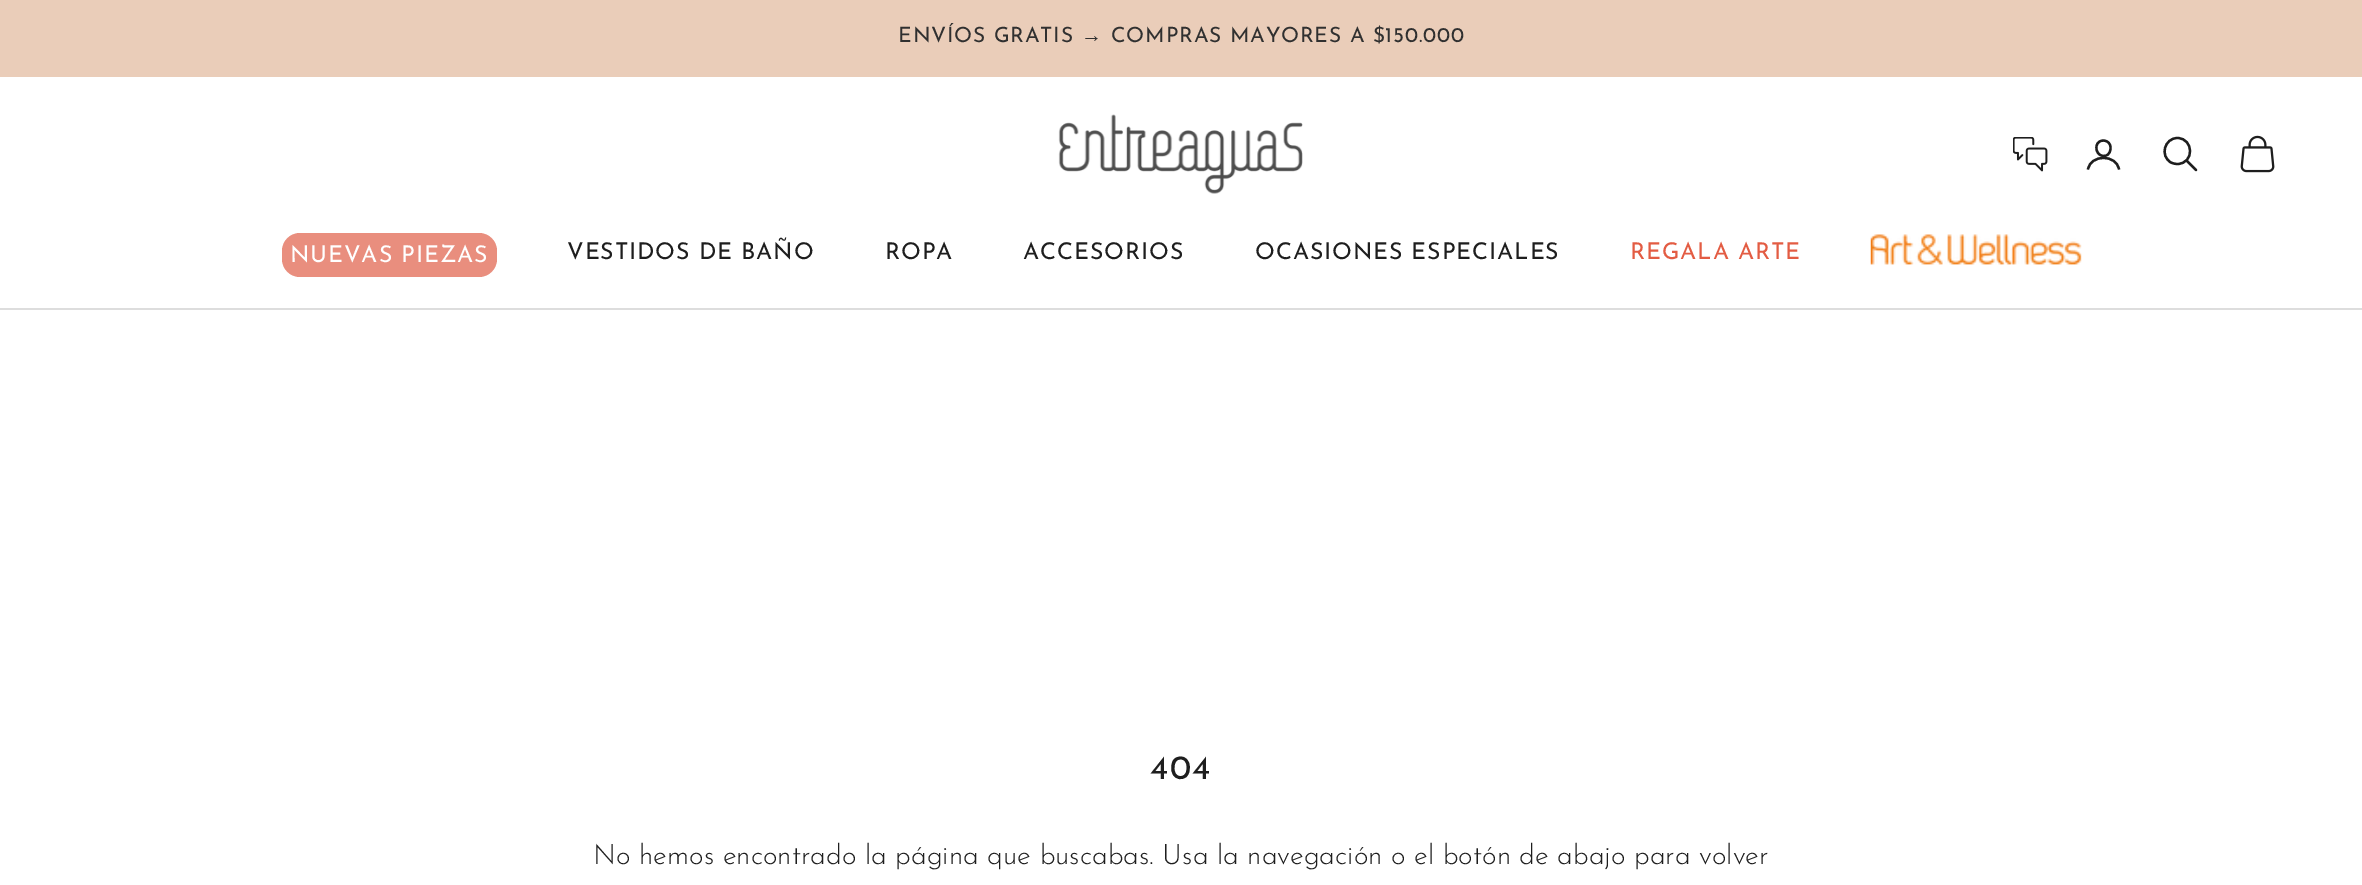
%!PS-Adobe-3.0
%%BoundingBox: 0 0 2362 885
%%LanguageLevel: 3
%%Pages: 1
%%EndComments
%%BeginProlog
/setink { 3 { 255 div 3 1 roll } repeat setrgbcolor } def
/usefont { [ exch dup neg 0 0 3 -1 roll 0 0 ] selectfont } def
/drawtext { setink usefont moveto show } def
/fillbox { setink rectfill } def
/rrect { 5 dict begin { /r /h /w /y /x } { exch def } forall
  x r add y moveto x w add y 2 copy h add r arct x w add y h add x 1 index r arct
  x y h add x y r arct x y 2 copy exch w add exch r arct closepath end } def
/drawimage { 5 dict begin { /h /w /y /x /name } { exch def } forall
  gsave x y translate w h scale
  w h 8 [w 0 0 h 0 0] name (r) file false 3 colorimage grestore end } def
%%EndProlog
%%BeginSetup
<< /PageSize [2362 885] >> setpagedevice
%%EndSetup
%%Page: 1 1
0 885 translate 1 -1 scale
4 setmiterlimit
0 0 2362 885 255 255 255 fillbox
0 0 2362 77 234 205 185 fillbox
/JosefinSans-Regular 21 usefont
48 48 48 setink
898 42 moveto 0.85 0 (ENVÍOS GRATIS) ashow
/LiberationSans-Regular 21 usefont
1081 42 moveto 0.85 0 (→) ashow
/JosefinSans-Regular 21 usefont
1111 42 moveto 0.85 0 (COMPRAS MAYORES A $150.000) ashow
0 308 2362 2 221 221 221 fillbox
(assets/img1.rgb) 1058 114 245 80 drawimage
(assets/img2.rgb) 2013 137 35 35 drawimage
30 30 30 setink
2.3 setlinewidth
1 setlinecap
1 setlinejoin
2110.5 148.5 moveto 2110 160 2095 157.5 2096.5 146.5 curveto 2097.5 137.5 2111.5 139 2110.5 148.5 curveto closepath stroke
0 setlinecap
0 setlinejoin
2088 169.5 moveto 2090.5 154 2116.5 154 2119 169.5 curveto stroke
2177.5 138 moveto 2164.5 138 2159.5 156 2171 162.5 curveto 2173 163.5 2175.5 164 2177.5 164 curveto 2194.5 163.5 2194 138.5 2177.5 138 curveto closepath stroke
1 setlinecap
2187 161 moveto 2196 170 lineto stroke
(assets/img3.rgb) 2240 135 35 38 drawimage
233 142 126 setink
282 233 215 44 18 rrect fill
/JosefinSans-Regular 23.1 usefont
255 255 255 setink
290 262 moveto 0.9 0 (NUEVAS PIEZAS) ashow
30 30 30 setink
567 259 moveto 0.9 0 (VESTIDOS DE BAÑO) ashow
885 259 moveto 0.9 0 (ROPA) ashow
1023 259 moveto 0.9 0 (ACCESORIOS) ashow
1255 259 moveto 0.9 0 (OCASIONES ESPECIALES) ashow
227 92 67 setink
1630 259 moveto 0.9 0 (REGALA ARTE) ashow
(assets/img4.rgb) 1870 234 212 31 drawimage
/JosefinSans-Regular 34 usefont
30 30 30 setink
1150 779 moveto 1.5 0 (404) ashow
(No hemos encontrado la página que buscabas. Usa la navegación o el botón de abajo para volver) 593 864 /JosefinSans-Light 28 30 30 30 drawtext
showpage
%%EOF
